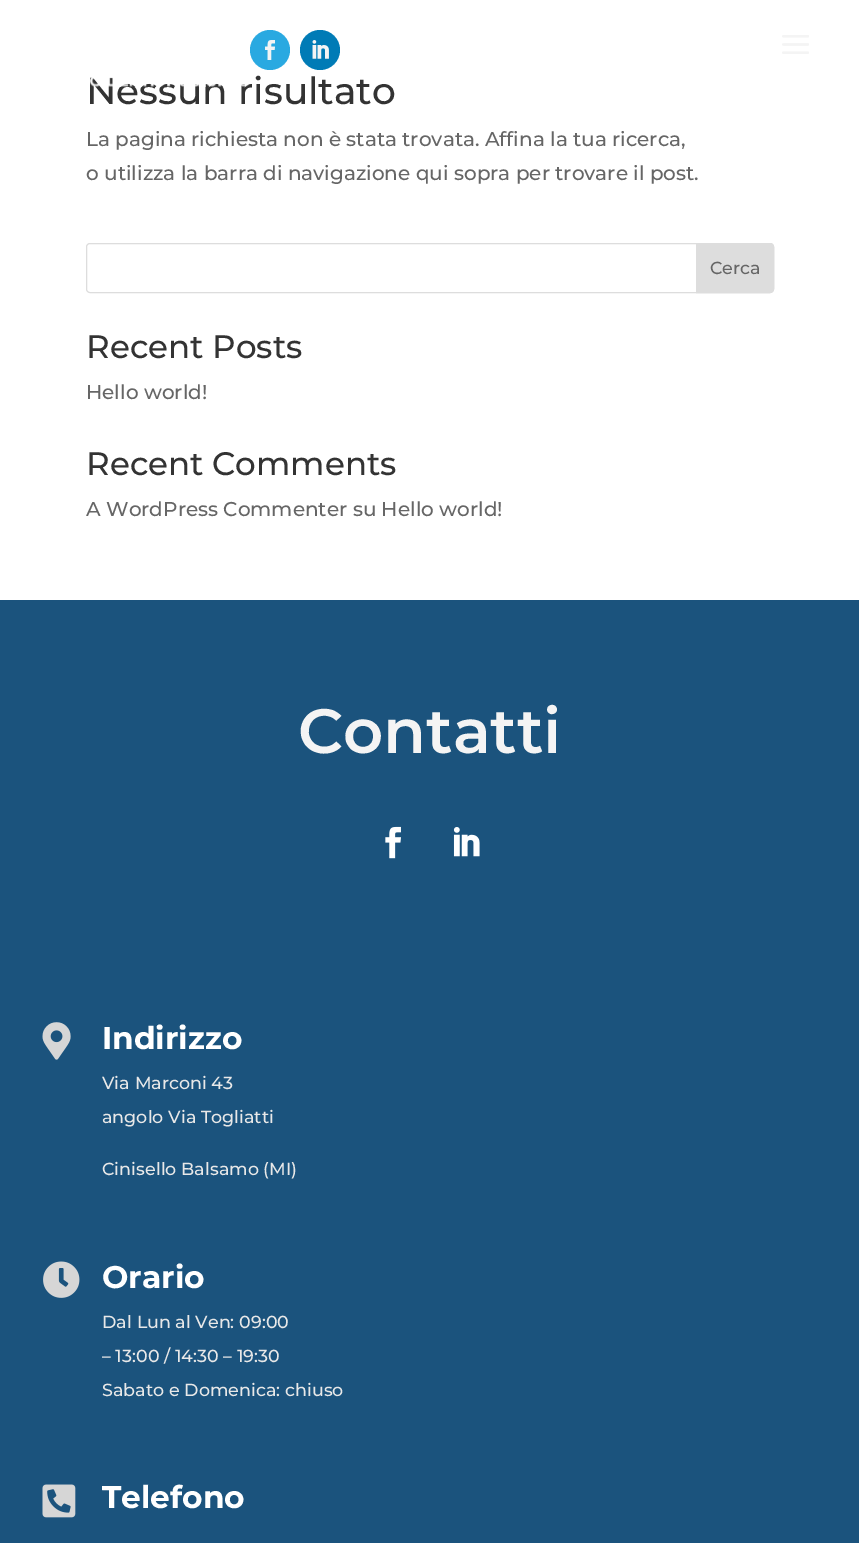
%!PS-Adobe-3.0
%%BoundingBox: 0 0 859 1543
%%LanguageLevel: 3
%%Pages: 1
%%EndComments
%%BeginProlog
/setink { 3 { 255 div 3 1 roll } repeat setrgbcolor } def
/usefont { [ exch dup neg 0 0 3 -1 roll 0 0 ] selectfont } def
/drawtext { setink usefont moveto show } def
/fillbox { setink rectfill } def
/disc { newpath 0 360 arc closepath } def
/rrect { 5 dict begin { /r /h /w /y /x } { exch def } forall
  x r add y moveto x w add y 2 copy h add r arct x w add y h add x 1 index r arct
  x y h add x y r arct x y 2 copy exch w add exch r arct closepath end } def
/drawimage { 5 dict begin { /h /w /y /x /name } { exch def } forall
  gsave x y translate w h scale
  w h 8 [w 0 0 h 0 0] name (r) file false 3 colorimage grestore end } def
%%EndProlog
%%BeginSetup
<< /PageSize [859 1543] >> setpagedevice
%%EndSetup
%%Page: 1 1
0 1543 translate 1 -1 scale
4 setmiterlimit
0 0 859 1543 255 255 255 fillbox
42 169 225 setink
270 50 20 disc fill
(assets/img1.rgb) 265 40 10 20 drawimage
0 123 182 setink
320 50 20 disc fill
(assets/img2.rgb) 312 40 17 19 drawimage
(assets/img3.rgb) 782 35 27 19 drawimage
(Nessun risultato) 86 104 /Montserrat-Thin 37.5 51 51 51 drawtext
(assets/img4.rgb) 90 77 160 10 drawimage
(La pagina richiesta non è stata trovata. Affina la tua ricerca,) 86 146 /Montserrat-Thin 20 102 102 102 drawtext
(o utilizza la barra di navigazione qui sopra per trovare il post.) 86 180 /Montserrat-Thin 20 102 102 102 drawtext
221 221 221 setink
86.5 243.5 687 49 3.5 rrect stroke
696.5 243.5 moveto 770 243.5 lineto 772 243.5 773.5 245 773.5 247 curveto 773.5 289 lineto 773.5 291 772 292.5 770 292.5 curveto 696.5 292.5 lineto closepath gsave fill grestore
stroke
(Cerca) 710 274 /Montserrat-Thin 17.5 102 102 102 drawtext
(Recent Posts) 86 358 /Montserrat-Thin 32.5 51 51 51 drawtext
(Hello world!) 86 399 /Montserrat-Thin 20 102 102 102 drawtext
(Recent Comments) 86 475 /Montserrat-Thin 32.5 51 51 51 drawtext
(A WordPress Commenter su Hello world!) 86 516 /Montserrat-Thin 20 102 102 102 drawtext
0 600 859 943 27 83 125 fillbox
(Contatti) 298 753 /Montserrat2-Thin 62.5 244 244 244 drawtext
(assets/img5.rgb) 385 826 16 33 drawimage
(assets/img6.rgb) 453 827 27 30 drawimage
(assets/img7.rgb) 42 1022 29 38 drawimage
(Indirizzo) 102 1049 /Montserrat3-Thin 31.25 255 255 255 drawtext
(Via Marconi 43) 102 1089 /Montserrat-Thin 17.5 232 232 232 drawtext
(angolo Via Togliatti) 102 1123 /Montserrat-Thin 17.5 232 232 232 drawtext
(Cinisello Balsamo \(MI\)) 102 1175 /Montserrat-Thin 17.5 232 232 232 drawtext
(assets/img8.rgb) 43 1261 37 37 drawimage
(Orario) 102 1288 /Montserrat3-Thin 31.25 255 255 255 drawtext
(Dal Lun al Ven: 09:00) 102 1328 /Montserrat-Thin 17.5 232 232 232 drawtext
(– 13:00 / 14:30 – 19:30) 102 1362 /Montserrat-Thin 17.5 232 232 232 drawtext
(Sabato e Domenica: chiuso) 102 1396 /Montserrat-Thin 17.5 232 232 232 drawtext
(assets/img9.rgb) 42 1484 34 34 drawimage
(Telefono) 102 1508 /Montserrat3-Thin 31.25 255 255 255 drawtext
showpage
%%EOF
